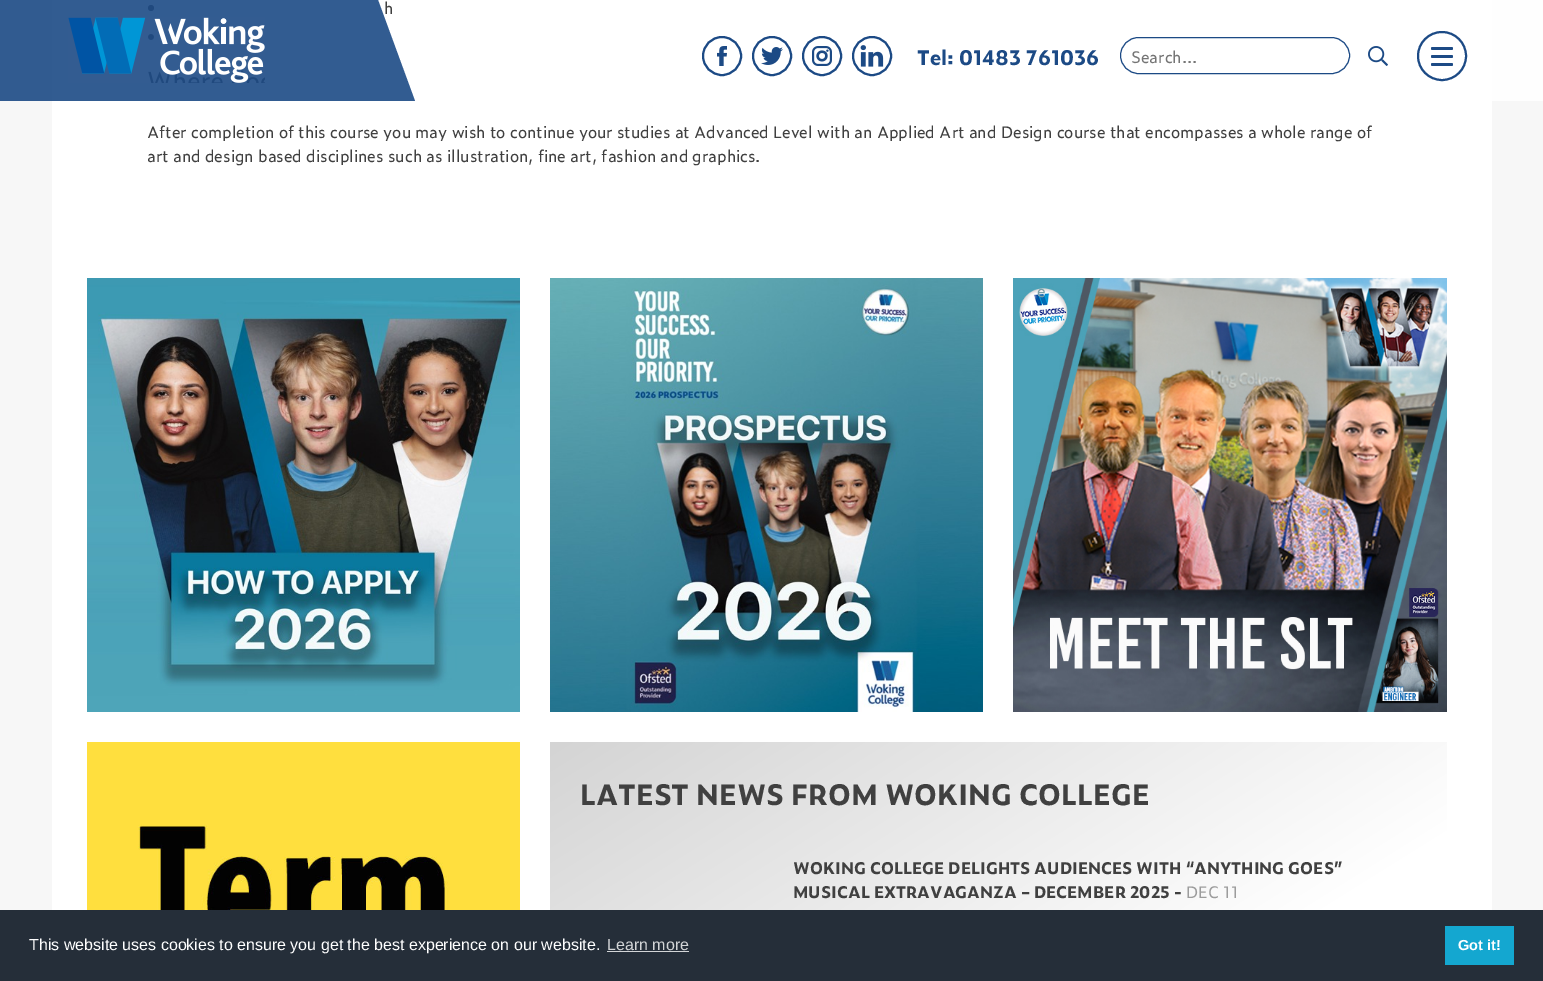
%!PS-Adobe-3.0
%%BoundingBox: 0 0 1543 981
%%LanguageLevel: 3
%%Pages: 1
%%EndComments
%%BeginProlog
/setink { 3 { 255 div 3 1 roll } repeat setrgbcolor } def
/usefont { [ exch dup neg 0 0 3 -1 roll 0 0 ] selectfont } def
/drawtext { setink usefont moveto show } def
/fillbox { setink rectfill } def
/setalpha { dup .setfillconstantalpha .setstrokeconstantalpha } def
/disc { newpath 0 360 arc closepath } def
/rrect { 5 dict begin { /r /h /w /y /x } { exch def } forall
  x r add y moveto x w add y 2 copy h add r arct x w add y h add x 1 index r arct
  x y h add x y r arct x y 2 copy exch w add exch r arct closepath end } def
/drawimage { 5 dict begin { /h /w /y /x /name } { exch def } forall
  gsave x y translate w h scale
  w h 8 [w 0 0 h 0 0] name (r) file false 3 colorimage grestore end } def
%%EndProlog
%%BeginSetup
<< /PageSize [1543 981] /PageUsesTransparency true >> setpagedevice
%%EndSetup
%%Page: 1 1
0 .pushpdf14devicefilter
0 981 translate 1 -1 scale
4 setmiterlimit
0 0 1543 981 247 247 247 fillbox
52 0 1440 910 255 255 255 fillbox
64 64 64 setink
151 8 3 disc fill
(h) 384 14 /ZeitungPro-Regular 16 64 64 64 drawtext
151 37 3 disc fill
(After completion of this course you may wish to continue your studies at Advanced Level with an Applied Art and Design course that encompasses a whole range of) 147 138 /ZeitungPro-Regular 16 64 64 64 drawtext
(art and design based disciplines such as illustration, fine art, fashion and graphics.) 147 162 /ZeitungPro-Regular 16 64 64 64 drawtext
(assets/img1.rgb) 87 278 433 434 drawimage
(assets/img2.rgb) 550 278 433 434 drawimage
(assets/img3.rgb) 1013 278 434 434 drawimage
(e) 1037 297 /ZeitungPro-Regular 16 122 160 168 drawtext
(assets/img4.rgb) 87 742 433 168 drawimage
gsave 550 742 moveto 1447 742 lineto 1447 910 lineto 550 910 lineto closepath clip newpath
<< /ShadingType 2 /ColorSpace /DeviceRGB /Coords [775 601 1222 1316] /Extend [true true] /Function << /FunctionType 3 /Domain [0 1] /Functions [<< /FunctionType 2 /Domain [0 1] /C0 [0.831 0.831 0.831] /C1 [1 1 1] /N 1 >> << /FunctionType 2 /Domain [0 1] /C0 [1 1 1] /C1 [1 1 1] /N 1 >>] /Bounds [0.66] /Encode [0 1 0 1] >> >> shfill grestore
(LATEST NEWS FROM WOKING COLLEGE) 580 805 /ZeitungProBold-Bold 28 64 64 64 drawtext
(WOKING COLLEGE DELIGHTS AUDIENCES WITH “ANYTHING GOES”) 793 874 /ZeitungProBold-Bold 16 64 64 64 drawtext
(MUSICAL EXTRAVAGANZA – DECEMBER 2025 -) 793 898 /ZeitungProBold-Bold 16 64 64 64 drawtext
(DEC 11) 1186 898 /ZeitungPro-Regular 16 156 156 156 drawtext
0.9 setalpha
28 74 133 setink
-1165 0 moveto 378 0 lineto 415 101 lineto -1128 101 lineto closepath fill
1 setalpha
(assets/img5.rgb) 68 17 197 66 drawimage
0.9 setalpha
255 255 255 setink
393 0 moveto 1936 0 lineto 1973 101 lineto 430 101 lineto closepath fill
1 setalpha
28 74 133 setink
2 setlinewidth
722 56 19 disc stroke
(assets/img6.rgb) 717 46 10 20 drawimage
772 56 19 disc stroke
(assets/img7.rgb) 761 47 22 18 drawimage
822 56 19 disc stroke
(assets/img8.rgb) 812 46 20 20 drawimage
872 56 19 disc stroke
(assets/img9.rgb) 860 45 24 22 drawimage
(Tel: 01483 761036) 917 65 /ZeitungProBold-Bold 20 28 74 133 drawtext
1 setlinewidth
1120.5 37.5 229 36 18 rrect stroke
(Search...) 1131 63 /ZeitungPro-Regular 16 117 117 117 drawtext
(assets/img10.rgb) 1368 46 20 20 drawimage
28 74 133 setink
2 setlinewidth
1442 56 24 disc stroke
1431 47 22 3 1.5 rrect fill
1431 55 22 3 1.5 rrect fill
1431 63 22 3 1.5 rrect fill
0 910 1543 71 37 46 57 fillbox
(This website uses cookies to ensure you get the best experience on our website.) 29 950 /LiberationSans-Regular 16 255 255 255 drawtext
(Learn more) 607 950 /LiberationSans-Regular 16 211 213 215 drawtext
607 951 82 1 211 213 215 fillbox
1445 926 69 39 20 167 208 fillbox
(Got it!) 1458 950 /LiberationSans-Bold 14.5 255 255 255 drawtext
.poppdf14devicefilter showpage
%%EOF
